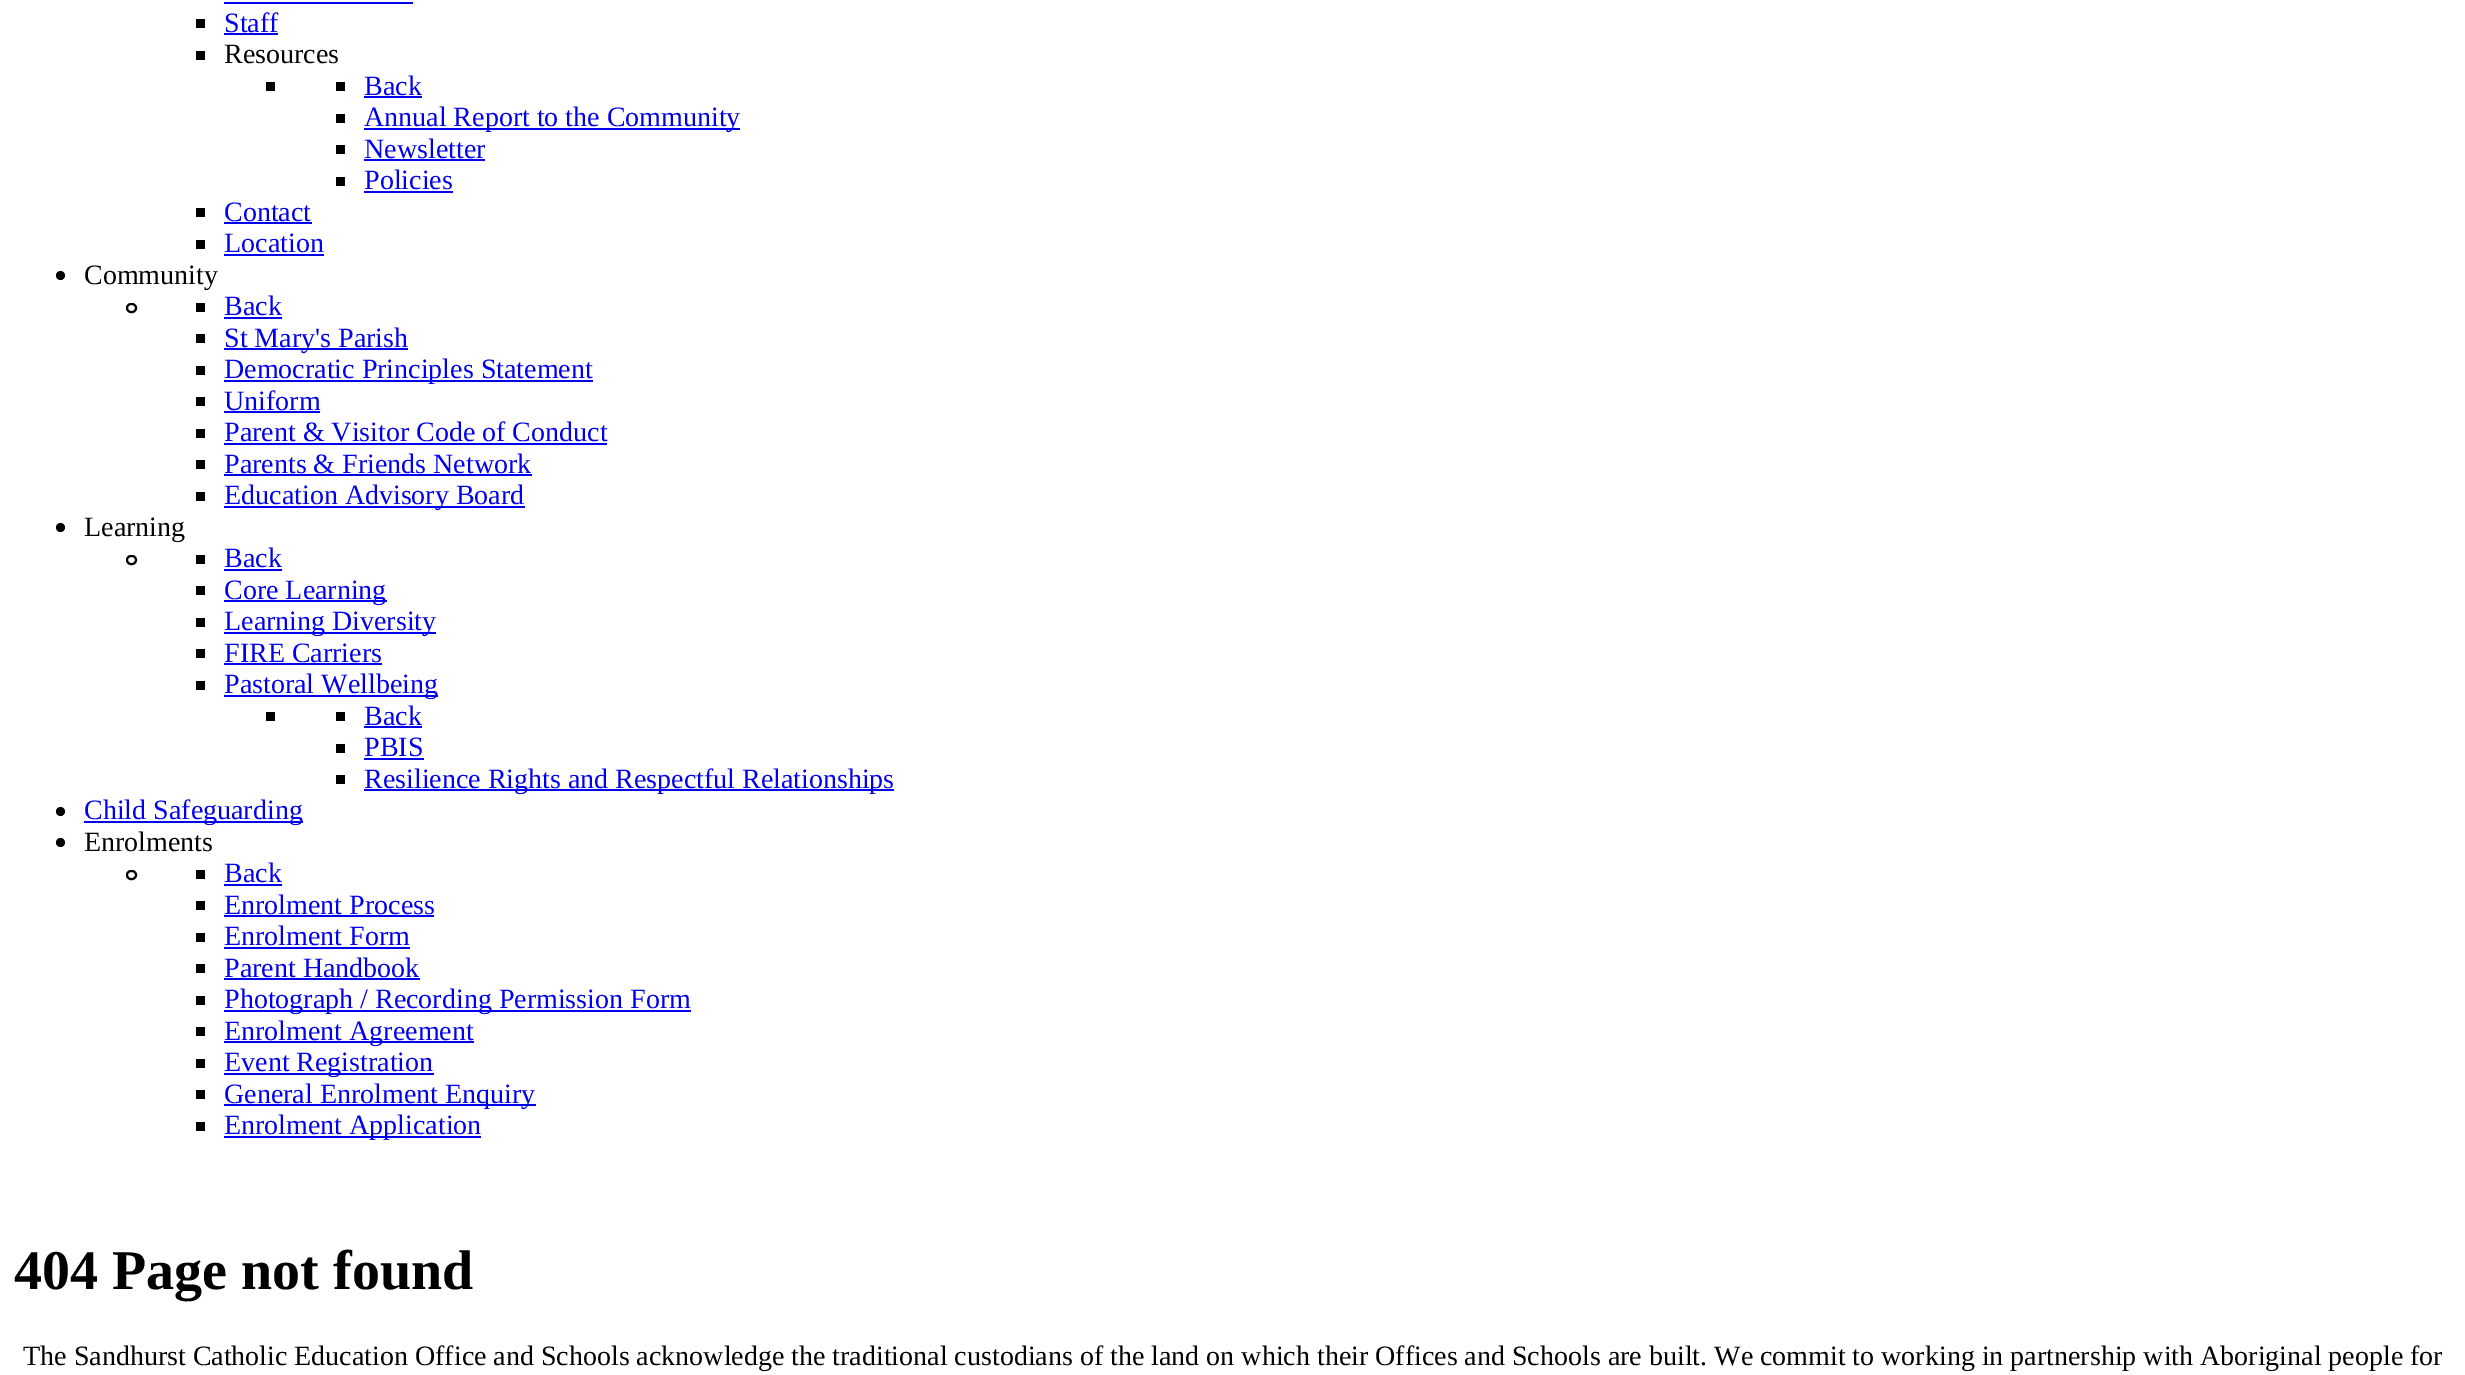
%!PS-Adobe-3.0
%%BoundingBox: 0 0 2465 1375
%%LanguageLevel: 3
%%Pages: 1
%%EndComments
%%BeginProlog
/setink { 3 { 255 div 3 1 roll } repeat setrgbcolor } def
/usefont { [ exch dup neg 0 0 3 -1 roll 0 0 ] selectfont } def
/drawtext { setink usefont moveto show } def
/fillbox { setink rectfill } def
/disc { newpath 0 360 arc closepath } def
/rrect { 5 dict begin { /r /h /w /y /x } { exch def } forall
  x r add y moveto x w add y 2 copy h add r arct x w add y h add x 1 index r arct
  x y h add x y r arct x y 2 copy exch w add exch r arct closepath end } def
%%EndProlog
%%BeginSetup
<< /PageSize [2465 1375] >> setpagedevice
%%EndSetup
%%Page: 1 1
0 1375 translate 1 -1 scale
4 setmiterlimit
0 0 2465 1375 255 255 255 fillbox
224 2 189 2 0 0 238 fillbox
196 19 9 9 0 0 0 fillbox
(Staff) 224 32 /LiberationSerif-Regular 28 0 0 238 drawtext
224 33 54 2 0 0 238 fillbox
196 51 9 9 0 0 0 fillbox
(Resources) 224 63 /LiberationSerif-Regular 28 0 0 0 drawtext
266 82 9 9 0 0 0 fillbox
336 82 9 9 0 0 0 fillbox
(Back) 364 95 /LiberationSerif-Regular 28 0 0 238 drawtext
364 96 58 2 0 0 238 fillbox
336 114 9 9 0 0 0 fillbox
364 128 376 2 0 0 238 fillbox
(Annual Report to the Community) 364 126 /LiberationSerif-Regular 28 0 0 238 drawtext
336 145 9 9 0 0 0 fillbox
(Newsletter) 364 158 /LiberationSerif-Regular 28 0 0 238 drawtext
364 159 121 2 0 0 238 fillbox
336 177 9 9 0 0 0 fillbox
(Policies) 364 189 /LiberationSerif-Regular 28 0 0 238 drawtext
364 191 89 2 0 0 238 fillbox
196 208 9 9 0 0 0 fillbox
(Contact) 224 221 /LiberationSerif-Regular 28 0 0 238 drawtext
224 222 88 2 0 0 238 fillbox
196 240 9 9 0 0 0 fillbox
(Location) 224 252 /LiberationSerif-Regular 28 0 0 238 drawtext
224 254 100 2 0 0 238 fillbox
0 0 0 setink
60.5 275.5 4.5 disc fill
(Community) 84 284 /LiberationSerif-Regular 28 0 0 0 drawtext
2 setlinewidth
127 304 9 8 4 rrect stroke
196 303 9 9 0 0 0 fillbox
(Back) 224 315 /LiberationSerif-Regular 28 0 0 238 drawtext
224 317 58 2 0 0 238 fillbox
196 334 9 9 0 0 0 fillbox
224 348 184 2 0 0 238 fillbox
(St Mary's Parish) 224 347 /LiberationSerif-Regular 28 0 0 238 drawtext
196 366 9 9 0 0 0 fillbox
224 380 369 2 0 0 238 fillbox
(Democratic Principles Statement) 224 378 /LiberationSerif-Regular 28 0 0 238 drawtext
196 397 9 9 0 0 0 fillbox
(Uniform) 224 410 /LiberationSerif-Regular 28 0 0 238 drawtext
224 411 96 2 0 0 238 fillbox
196 429 9 9 0 0 0 fillbox
(Parent & Visitor Code of Conduct) 224 441 /LiberationSerif-Regular 28 0 0 238 drawtext
224 443 383 2 0 0 238 fillbox
196 460 9 9 0 0 0 fillbox
(Parents & Friends Network) 224 473 /LiberationSerif-Regular 28 0 0 238 drawtext
224 474 308 2 0 0 238 fillbox
196 492 9 9 0 0 0 fillbox
224 506 301 2 0 0 238 fillbox
(Education Advisory Board) 224 504 /LiberationSerif-Regular 28 0 0 238 drawtext
0 0 0 setink
60.5 527.5 4.5 disc fill
(Learning) 84 536 /LiberationSerif-Regular 28 0 0 0 drawtext
127 556 9 8 4 rrect stroke
196 555 9 9 0 0 0 fillbox
(Back) 224 567 /LiberationSerif-Regular 28 0 0 238 drawtext
224 569 58 2 0 0 238 fillbox
196 586 9 9 0 0 0 fillbox
224 600 163 2 0 0 238 fillbox
(Core Learning) 224 599 /LiberationSerif-Regular 28 0 0 238 drawtext
196 618 9 9 0 0 0 fillbox
224 632 212 2 0 0 238 fillbox
(Learning Diversity) 224 630 /LiberationSerif-Regular 28 0 0 238 drawtext
196 649 9 9 0 0 0 fillbox
(FIRE Carriers) 224 662 /LiberationSerif-Regular 28 0 0 238 drawtext
224 663 158 2 0 0 238 fillbox
196 681 9 9 0 0 0 fillbox
224 695 214 2 0 0 238 fillbox
(Pastoral Wellbeing) 224 693 /LiberationSerif-Regular 28 0 0 238 drawtext
266 712 9 9 0 0 0 fillbox
336 712 9 9 0 0 0 fillbox
(Back) 364 725 /LiberationSerif-Regular 28 0 0 238 drawtext
364 726 58 2 0 0 238 fillbox
336 744 9 9 0 0 0 fillbox
(PBIS) 364 756 /LiberationSerif-Regular 28 0 0 238 drawtext
364 758 60 2 0 0 238 fillbox
336 775 9 9 0 0 0 fillbox
364 789 530 2 0 0 238 fillbox
(Resilience Rights and Respectful Relationships) 364 788 /LiberationSerif-Regular 28 0 0 238 drawtext
0 0 0 setink
60.5 811.5 4.5 disc fill
84 821 219 2 0 0 238 fillbox
(Child Safeguarding) 84 819 /LiberationSerif-Regular 28 0 0 238 drawtext
0 0 0 setink
60.5 842.5 4.5 disc fill
(Enrolments) 84 851 /LiberationSerif-Regular 28 0 0 0 drawtext
127 871 9 8 4 rrect stroke
196 870 9 9 0 0 0 fillbox
(Back) 224 882 /LiberationSerif-Regular 28 0 0 238 drawtext
224 884 58 2 0 0 238 fillbox
196 901 9 9 0 0 0 fillbox
(Enrolment Process) 224 914 /LiberationSerif-Regular 28 0 0 238 drawtext
224 915 210 2 0 0 238 fillbox
196 933 9 9 0 0 0 fillbox
(Enrolment Form) 224 945 /LiberationSerif-Regular 28 0 0 238 drawtext
224 947 186 2 0 0 238 fillbox
196 964 9 9 0 0 0 fillbox
(Parent Handbook) 224 977 /LiberationSerif-Regular 28 0 0 238 drawtext
224 978 196 2 0 0 238 fillbox
196 996 9 9 0 0 0 fillbox
224 1010 467 2 0 0 238 fillbox
(Photograph / Recording Permission Form) 224 1008 /LiberationSerif-Regular 28 0 0 238 drawtext
196 1027 9 9 0 0 0 fillbox
224 1041 250 2 0 0 238 fillbox
(Enrolment Agreement) 224 1040 /LiberationSerif-Regular 28 0 0 238 drawtext
196 1059 9 9 0 0 0 fillbox
224 1073 210 2 0 0 238 fillbox
(Event Registration) 224 1071 /LiberationSerif-Regular 28 0 0 238 drawtext
196 1090 9 9 0 0 0 fillbox
224 1104 312 2 0 0 238 fillbox
(General Enrolment Enquiry) 224 1103 /LiberationSerif-Regular 28 0 0 238 drawtext
196 1122 9 9 0 0 0 fillbox
224 1136 257 2 0 0 238 fillbox
(Enrolment Application) 224 1134 /LiberationSerif-Regular 28 0 0 238 drawtext
(404 Page not found) 14 1289 /LiberationSerif-Bold 56 0 0 0 drawtext
(The Sandhurst Catholic Education Office and Schools acknowledge the traditional custodians of the land on which their Offices and Schools are built. We commit to working in partnership with Aboriginal people for) 23 1365 /LiberationSerif-Regular 28 0 0 0 drawtext
showpage
%%EOF
